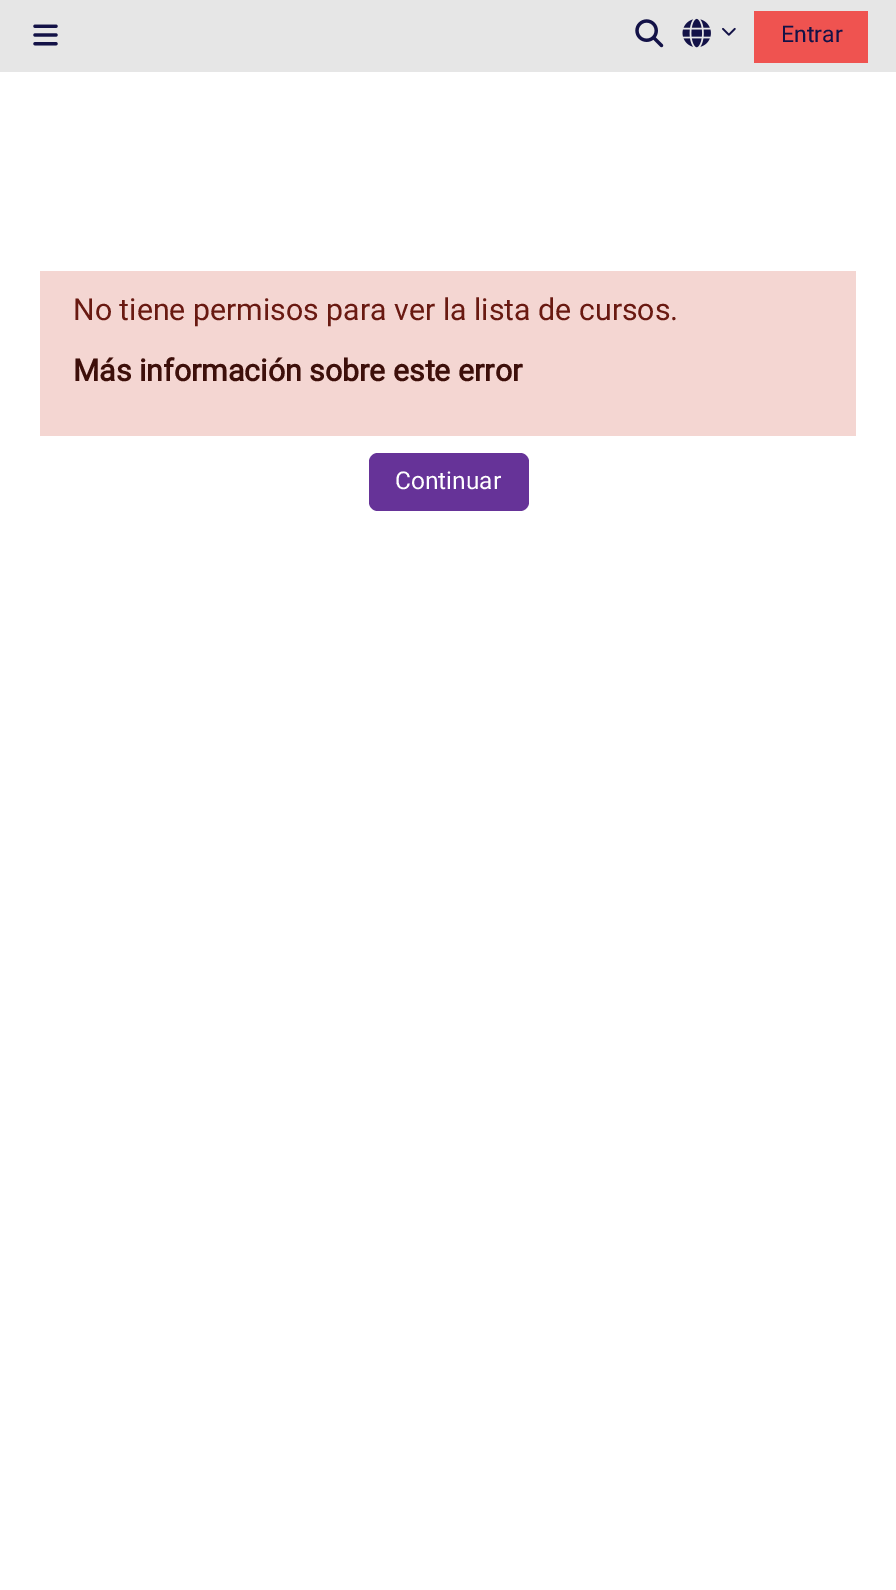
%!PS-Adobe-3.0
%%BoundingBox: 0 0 896 1590
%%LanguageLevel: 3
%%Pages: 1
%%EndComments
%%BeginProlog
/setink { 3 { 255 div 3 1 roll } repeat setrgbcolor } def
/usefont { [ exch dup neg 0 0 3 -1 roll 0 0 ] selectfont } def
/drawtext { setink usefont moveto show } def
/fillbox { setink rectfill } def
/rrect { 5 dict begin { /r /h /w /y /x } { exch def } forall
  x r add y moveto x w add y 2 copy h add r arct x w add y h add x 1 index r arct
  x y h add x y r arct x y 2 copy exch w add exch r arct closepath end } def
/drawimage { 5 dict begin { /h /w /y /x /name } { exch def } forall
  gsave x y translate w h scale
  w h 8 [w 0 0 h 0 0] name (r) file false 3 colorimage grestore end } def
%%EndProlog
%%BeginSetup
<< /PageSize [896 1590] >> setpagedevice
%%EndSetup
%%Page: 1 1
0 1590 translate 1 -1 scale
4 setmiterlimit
0 0 896 1590 255 255 255 fillbox
0 0 896 72 230 230 230 fillbox
(assets/img1.rgb) 33 24 25 22 drawimage
(assets/img2.rgb) 635 19 29 29 drawimage
(assets/img3.rgb) 682 18 29 30 drawimage
(assets/img4.rgb) 722 27 14 9 drawimage
754 11 114 52 239 83 80 fillbox
(Entrar) 781 42 /Roboto-Regular 23 19 18 71 drawtext
40 271 816 165 244 214 210 fillbox
(No tiene permisos para ver la lista de cursos.) 73 320 /Roboto-Regular 30.3 105 25 17 drawtext
(Más información sobre este error) 73 381 /Roboto-Bold 30.3 61 15 10 drawtext
102 51 152 setink
369 453 160 58 9 rrect fill
(Continuar) 395 489 /Roboto-Regular 24.5 255 255 255 drawtext
showpage
%%EOF
